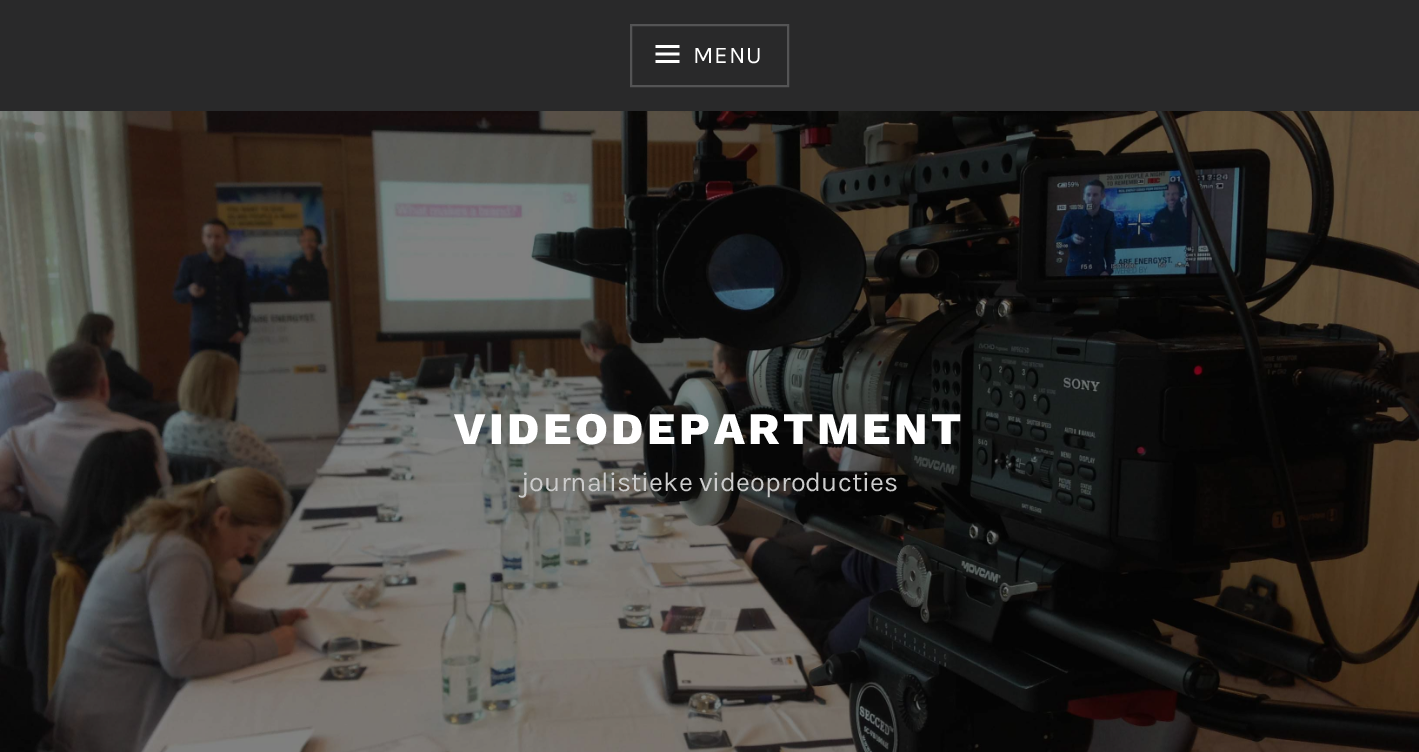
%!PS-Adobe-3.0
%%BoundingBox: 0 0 1419 752
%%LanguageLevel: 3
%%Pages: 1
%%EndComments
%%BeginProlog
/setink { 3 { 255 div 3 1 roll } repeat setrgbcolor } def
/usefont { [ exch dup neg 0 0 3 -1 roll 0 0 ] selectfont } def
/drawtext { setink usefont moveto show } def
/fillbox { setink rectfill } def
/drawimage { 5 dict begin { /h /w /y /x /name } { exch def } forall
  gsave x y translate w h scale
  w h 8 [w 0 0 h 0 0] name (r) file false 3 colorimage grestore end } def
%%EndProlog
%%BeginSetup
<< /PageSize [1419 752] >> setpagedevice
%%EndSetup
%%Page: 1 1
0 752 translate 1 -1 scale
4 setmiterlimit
0 0 1419 752 41 41 42 fillbox
84 84 85 setink
2 setlinewidth
631 25 157 61 rectstroke
(assets/img1.rgb) 655 45 25 18 drawimage
/Karla-Regular 24 usefont
255 255 255 setink
693 63 moveto 1 0 (MENU) ashow
(assets/img2.rgb) 0 111 1419 641 drawimage
/WorkSans-ExtraBold 45 usefont
454 444 moveto 3.6 0 (VIDEODEPARTMENT) ashow
(journalistieke videoproducties) 521 491 /Karla-Regular 27 204 204 204 drawtext
showpage
%%EOF
